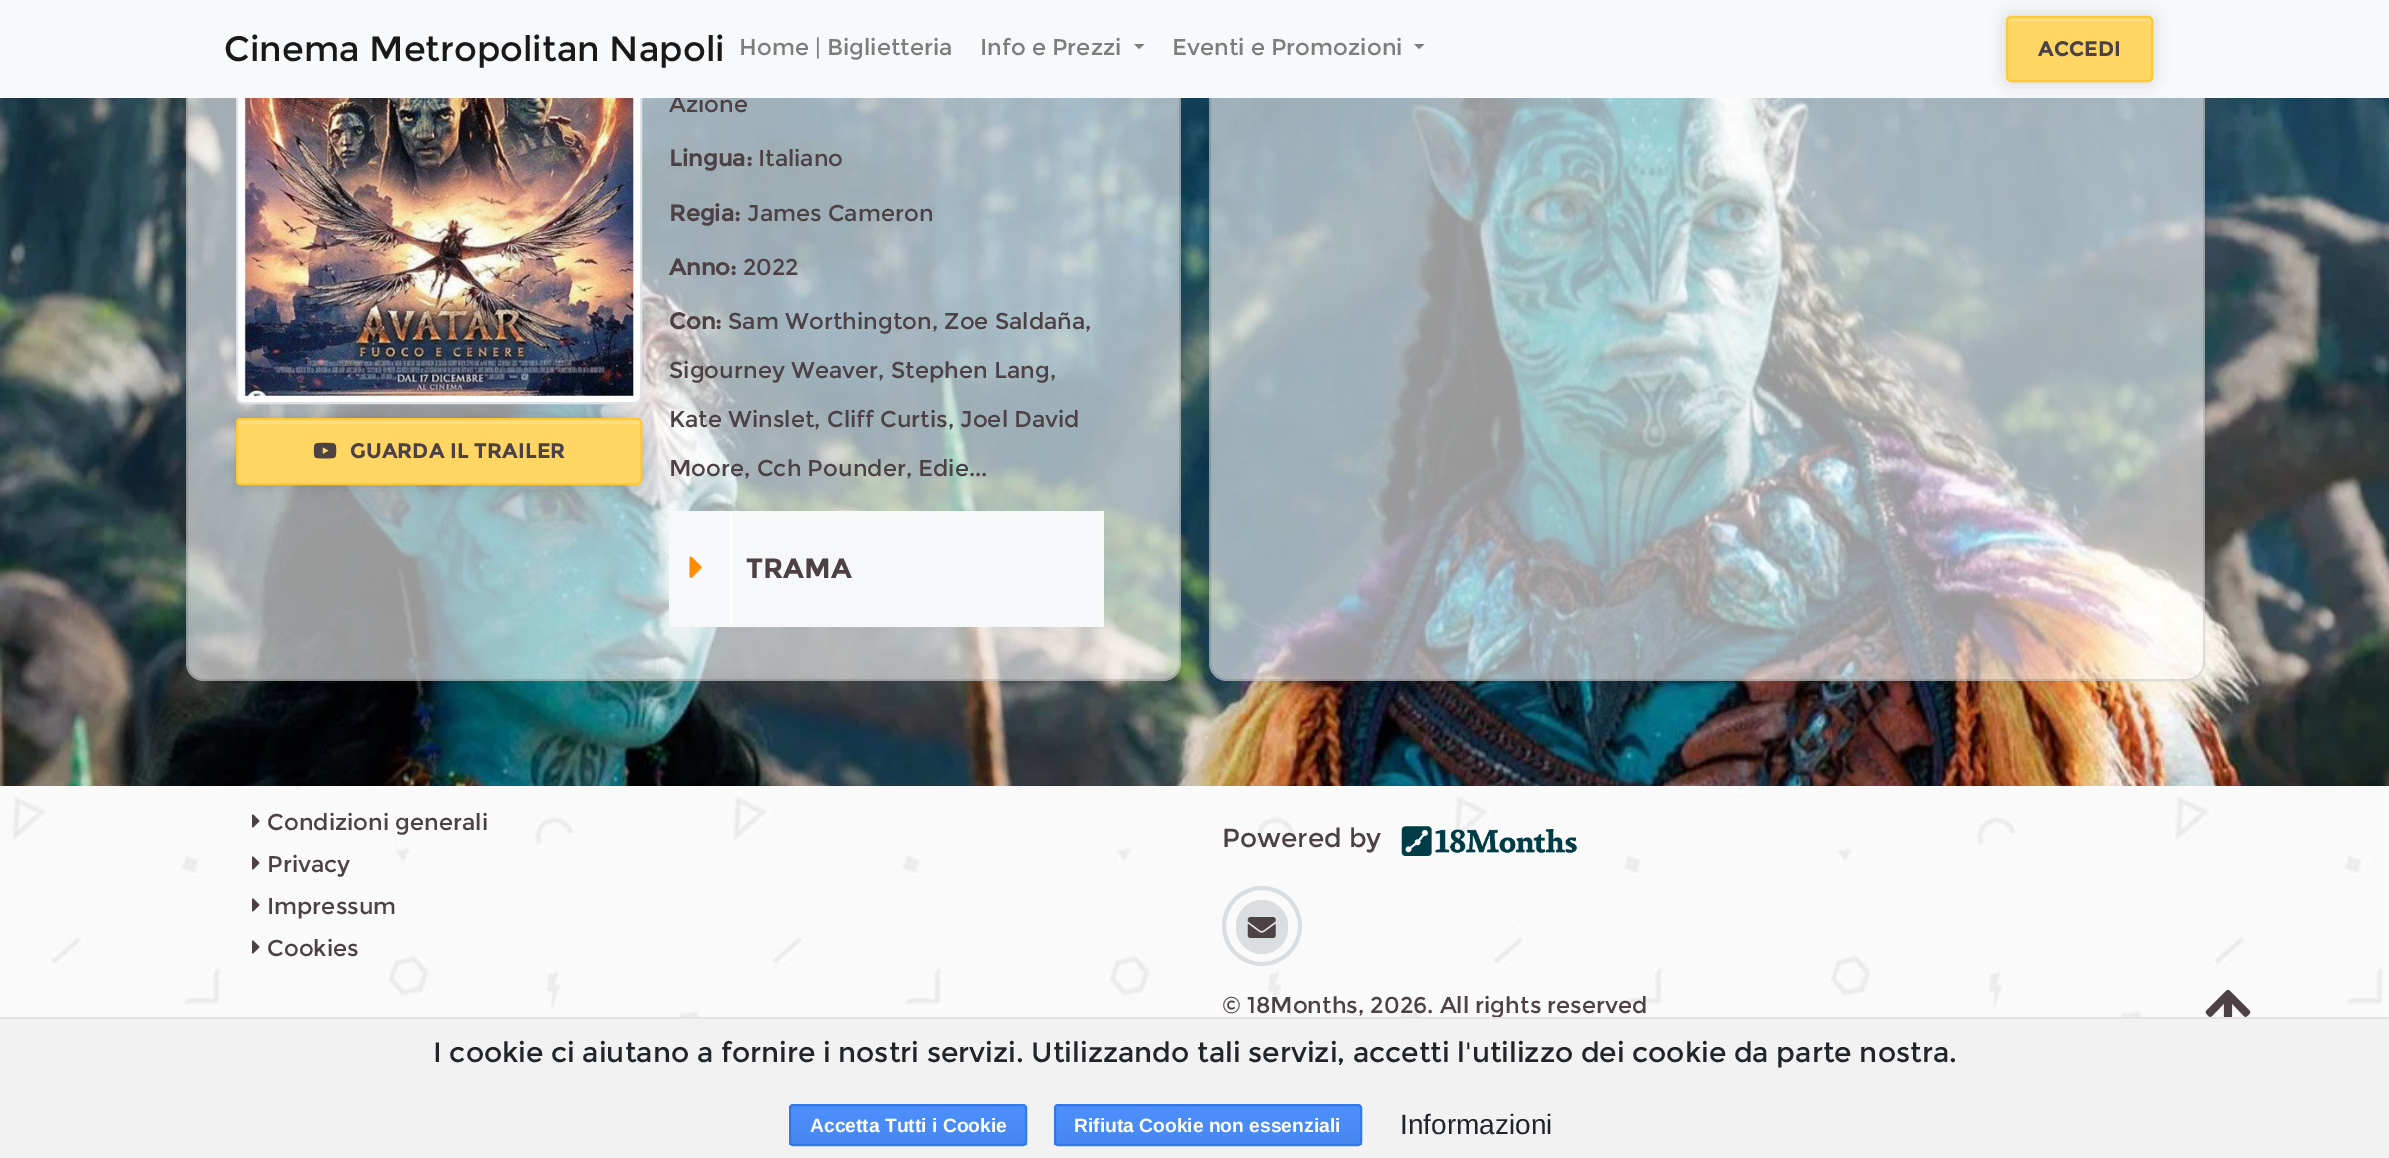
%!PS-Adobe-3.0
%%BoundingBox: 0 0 2389 1158
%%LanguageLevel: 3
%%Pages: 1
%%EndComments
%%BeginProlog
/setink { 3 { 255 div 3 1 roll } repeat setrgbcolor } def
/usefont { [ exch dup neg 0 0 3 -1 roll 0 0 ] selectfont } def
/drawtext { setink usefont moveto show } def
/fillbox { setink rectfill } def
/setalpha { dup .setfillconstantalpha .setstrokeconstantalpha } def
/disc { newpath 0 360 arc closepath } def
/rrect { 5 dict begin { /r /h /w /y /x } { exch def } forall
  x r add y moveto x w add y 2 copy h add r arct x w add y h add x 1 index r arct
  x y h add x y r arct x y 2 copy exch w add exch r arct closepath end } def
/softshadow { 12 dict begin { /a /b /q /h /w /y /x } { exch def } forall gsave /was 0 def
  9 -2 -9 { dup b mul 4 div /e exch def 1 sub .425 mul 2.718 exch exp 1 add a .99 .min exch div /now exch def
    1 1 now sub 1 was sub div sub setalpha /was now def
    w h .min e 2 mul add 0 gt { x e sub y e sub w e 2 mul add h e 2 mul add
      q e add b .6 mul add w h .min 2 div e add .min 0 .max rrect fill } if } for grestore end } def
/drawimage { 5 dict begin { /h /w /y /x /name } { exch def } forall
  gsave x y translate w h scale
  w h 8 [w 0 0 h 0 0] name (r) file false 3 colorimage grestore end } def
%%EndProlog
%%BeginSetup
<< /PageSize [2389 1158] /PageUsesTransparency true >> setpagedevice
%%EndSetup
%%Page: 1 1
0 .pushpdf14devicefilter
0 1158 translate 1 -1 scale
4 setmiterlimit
0 0 2389 1158 255 255 255 fillbox
(assets/img4.rgb) 0 98 2389 688 drawimage
0.6 setalpha
186 -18 995 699 18 rrect fill
0.12 setalpha
0 0 0 setink
2 setlinewidth
187 -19 993 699 17 rrect stroke
1 setalpha
236 418 406 67 5 9 0.16 softshadow
255 255 255 setink
237 -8 404 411 6 rrect gsave fill grestore
222 226 230 setink
stroke
(Azione) 669 112 /Montserrat-Regular 22.75 76 65 69 drawtext
0.6 setalpha
255 255 255 setink
1209 -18 996 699 18 rrect fill
0.12 setalpha
0 0 0 setink
1210 -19 994 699 17 rrect stroke
1 setalpha
0 0 2389 98 248 249 250 fillbox
(Cinema Metropolitan Napoli) 224 61 /Montserrat-Regular 35 25 25 25 drawtext
(Home | Biglietteria) 739 55 /Montserrat-Regular 22.75 124 125 125 drawtext
(Info e Prezzi) 980 55 /Montserrat-Regular 22.75 124 125 125 drawtext
1134 44 moveto 1144.5 44 lineto 1139 49 lineto closepath fill
(Eventi e Promozioni) 1172 55 /Montserrat-Regular 22.75 124 125 125 drawtext
1414 44 moveto 1424.5 44 lineto 1419 49 lineto closepath fill
0 0 0 setink
2006 16 147 66 5 9 0.16 softshadow
255 213 100 setink
2006 16 147 66 5 rrect fill
255 221 131 setink
2011 21 moveto 2148 21 lineto 2150 23 lineto 2151 24 lineto 2151 22 lineto 2151 20 2149 18 2147 18 curveto 2011 18 lineto 2009 18 2007 20 2007 22 curveto 2007 24 lineto 2007 23 2009 21 2011 21 curveto closepath fill
255 201 54 setink
2007 17 145 64 4 rrect stroke
(ACCEDI) 2038 56 /Montserrat-Bold 21 76 65 69 drawtext
(assets/img1.rgb) 244 98 390 298 drawimage
255 213 100 setink
236 418 406 67 5 rrect fill
255 221 131 setink
242 424 moveto 637 424 lineto 639 424 640 425 640 427 curveto 640 482 lineto 641 481 641 480 641 479 curveto 641 424 lineto 641 422 639 420 637 420 curveto 242 420 lineto 240 420 238 422 238 424 curveto 238 427 lineto 238 425 240 424 242 424 curveto closepath fill
255 201 54 setink
237 419 404 65 4 rrect stroke
(assets/img2.rgb) 313 442 24 17 drawimage
(GUARDA IL TRAILER) 350 458 /Montserrat-Bold 21 76 65 69 drawtext
(Lingua:) 669 166 /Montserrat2-Bold 22.75 76 65 69 drawtext
(Italiano) 758 166 /Montserrat-Regular 22.75 76 65 69 drawtext
(Regia:) 669 221 /Montserrat2-Bold 22.75 76 65 69 drawtext
(James Cameron) 747 221 /Montserrat-Regular 22.75 76 65 69 drawtext
(Anno:) 669 275 /Montserrat2-Bold 22.75 76 65 69 drawtext
(2022) 743 275 /Montserrat-Regular 22.75 76 65 69 drawtext
(Con:) 669 329 /Montserrat2-Bold 22.75 76 65 69 drawtext
(Sam Worthington, Zoe Saldaña,) 728 329 /Montserrat-Regular 22.75 76 65 69 drawtext
(Sigourney Weaver, Stephen Lang,) 669 378 /Montserrat-Regular 22.75 76 65 69 drawtext
(Kate Winslet, Cliff Curtis, Joel David) 669 427 /Montserrat-Regular 22.75 76 65 69 drawtext
(Moore, Cch Pounder, Edie...) 669 476 /Montserrat-Regular 22.75 76 65 69 drawtext
669 511 435 5 255 255 255 fillbox
247 248 249 setink
674 511 moveto 1099 511 lineto 1102 511 1104 513 1104 516 curveto 1104 627 lineto 669 627 lineto 669 516 lineto 669 513 671 511 674 511 curveto closepath fill
730 513 2 112 255 255 255 fillbox
(assets/img3.rgb) 689 556 13 22 drawimage
(TRAMA) 746 578 /Montserrat-Bold 28 76 65 69 drawtext
0 786 2389 231 250 250 250 fillbox
(assets/img5.rgb) 13 786 2370 231 drawimage
(assets/img6.rgb) 252 814 8 14 drawimage
(Condizioni generali) 267 830 /Montserrat-Regular 22.75 76 65 69 drawtext
(assets/img6.rgb) 252 856 8 14 drawimage
(Privacy) 267 872 /Montserrat-Regular 22.75 76 65 69 drawtext
(assets/img6.rgb) 252 898 8 14 drawimage
(Impressum) 267 914 /Montserrat-Regular 22.75 76 65 69 drawtext
(assets/img6.rgb) 252 940 8 14 drawimage
(Cookies) 267 956 /Montserrat-Regular 22.75 76 65 69 drawtext
(Powered by) 1222 847 /Montserrat-Regular 26.25 76 65 69 drawtext
(assets/img7.rgb) 1401 826 176 30 drawimage
219 222 225 setink
1236 900 52 54 26 rrect fill
(assets/img8.rgb) 1247 917 29 21 drawimage
4 setlinewidth
1262 926 38 disc stroke
(© 18Months, 2026. All rights reserved) 1222 1013 /Montserrat-Regular 22.75 76 65 69 drawtext
0 1019 2389 139 242 242 242 fillbox
0 1017 2389 2 228 228 228 fillbox
(I cookie ci aiutano a fornire i nostri servizi. Utilizzando tali servizi, accetti l'utilizzo dei cookie da parte nostra.) 433 1062 /Montserrat-Regular 28 33 37 41 drawtext
gsave
789 1104 238 42 4 rrect clip newpath
gsave 789 1106 moveto 1027 1106 lineto 1027 1145 lineto 789 1145 lineto closepath clip newpath
<< /ShadingType 2 /ColorSpace /DeviceRGB /Coords [908 1106 908 1145] /Extend [true true] /Function << /FunctionType 2 /Domain [0 1] /C0 [0.302 0.565 0.996] /C1 [0.278 0.529 0.929] /N 1 >> >> shfill grestore
grestore
48 121 237 setink
2 setlinewidth
790 1105 236 40 3 rrect stroke
(Accetta Tutti i Cookie) 810 1132 /LiberationSans-Bold 19.25 255 255 255 drawtext
gsave
1054 1104 308 42 4 rrect clip newpath
gsave 1054 1106 moveto 1362 1106 lineto 1362 1145 lineto 1054 1145 lineto closepath clip newpath
<< /ShadingType 2 /ColorSpace /DeviceRGB /Coords [1208 1106 1208 1145] /Extend [true true] /Function << /FunctionType 2 /Domain [0 1] /C0 [0.302 0.565 0.996] /C1 [0.278 0.529 0.929] /N 1 >> >> shfill grestore
grestore
48 121 237 setink
1055 1105 306 40 3 rrect stroke
(Rifiuta Cookie non essenziali) 1074 1132 /LiberationSans-Bold 19.25 255 255 255 drawtext
(Informazioni) 1400 1134 /LiberationSans-Regular 28 33 37 41 drawtext
(assets/img9.rgb) 2205 989 46 28 drawimage
.poppdf14devicefilter showpage
%%EOF
